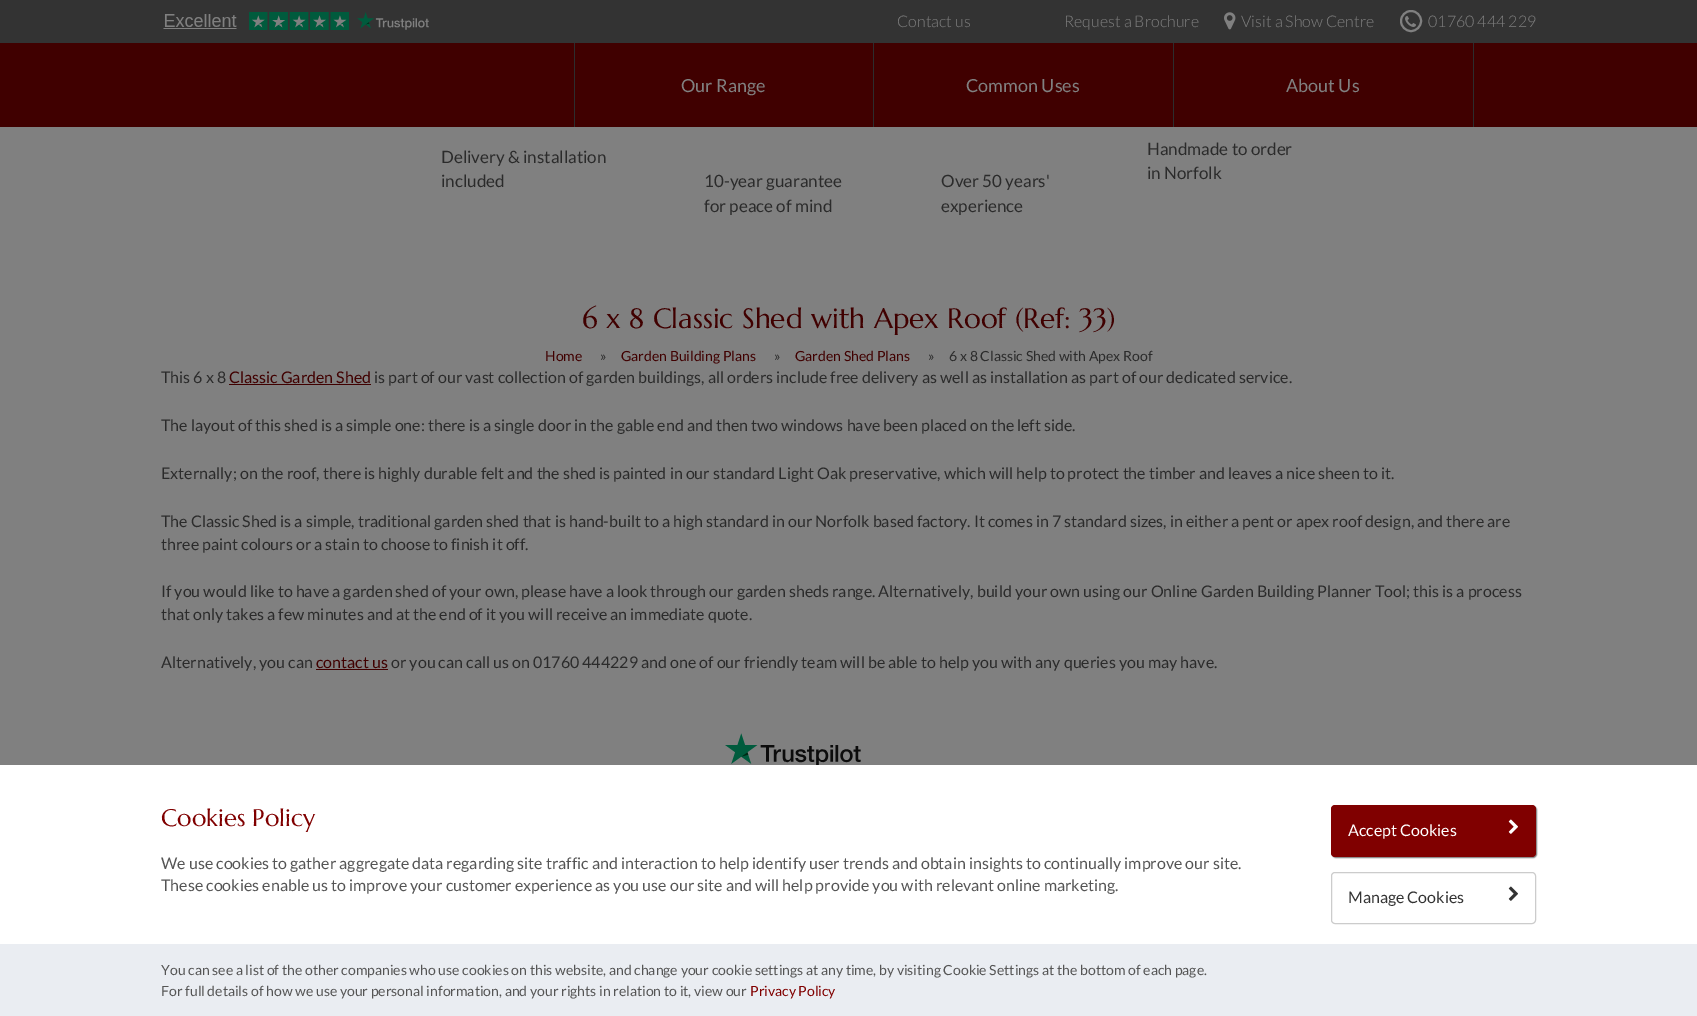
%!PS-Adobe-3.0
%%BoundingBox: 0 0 1697 1016
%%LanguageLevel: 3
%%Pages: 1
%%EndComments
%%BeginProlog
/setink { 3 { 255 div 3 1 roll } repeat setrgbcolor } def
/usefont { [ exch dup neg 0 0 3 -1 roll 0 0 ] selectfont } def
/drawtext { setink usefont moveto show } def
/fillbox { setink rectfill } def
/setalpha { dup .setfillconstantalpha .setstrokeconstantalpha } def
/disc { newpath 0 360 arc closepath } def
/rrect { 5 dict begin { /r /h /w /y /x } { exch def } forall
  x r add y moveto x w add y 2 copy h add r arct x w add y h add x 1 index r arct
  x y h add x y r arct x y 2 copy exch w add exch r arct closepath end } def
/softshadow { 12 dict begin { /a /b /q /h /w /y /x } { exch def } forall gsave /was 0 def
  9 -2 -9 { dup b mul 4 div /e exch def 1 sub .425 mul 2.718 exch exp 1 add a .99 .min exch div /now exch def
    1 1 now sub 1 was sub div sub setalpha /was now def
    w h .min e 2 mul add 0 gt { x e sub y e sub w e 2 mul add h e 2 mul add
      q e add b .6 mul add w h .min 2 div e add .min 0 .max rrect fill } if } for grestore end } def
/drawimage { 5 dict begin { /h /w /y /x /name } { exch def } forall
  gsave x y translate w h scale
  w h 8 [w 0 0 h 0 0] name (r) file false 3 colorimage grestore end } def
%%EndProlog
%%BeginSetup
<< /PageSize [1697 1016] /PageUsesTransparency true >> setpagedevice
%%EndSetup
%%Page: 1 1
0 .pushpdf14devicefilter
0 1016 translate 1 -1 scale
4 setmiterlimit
0 0 1697 1016 128 128 128 fillbox
0 43 1697 84 64 0 0 fillbox
873 42 1 85 45 45 45 fillbox
574 42 1 85 45 45 45 fillbox
1173 42 1 85 45 45 45 fillbox
1473 42 1 85 45 45 45 fillbox
0 0 1697 43 51 51 51 fillbox
(assets/img1.rgb) 163 12 266 18 drawimage
(Contact us) 897 27 /Lato-Light 16 128 128 128 drawtext
(Request a Brochure) 1064 27 /Lato-Light 16 128 128 128 drawtext
(assets/img2.rgb) 1224 12 12 18 drawimage
(Visit a Show Centre) 1241 27 /Lato-Light 16 128 128 128 drawtext
2 setlinewidth
1411 21 10 disc stroke
(assets/img3.rgb) 1405 16 11 11 drawimage
(01760 444 229) 1428 27 /Lato-Light 16 128 128 128 drawtext
(Our Range) 681 92 /Lato-Regular 18 128 128 128 drawtext
(Common Uses) 966 92 /Lato-Regular 18 128 128 128 drawtext
(About Us) 1286 92 /Lato-Regular 18 128 128 128 drawtext
(Delivery & installation) 441 163 /Lato-Regular 17 43 43 43 drawtext
(included) 441 187 /Lato-Regular 17 43 43 43 drawtext
(Handmade to order) 1147 155 /Lato-Regular 17 43 43 43 drawtext
(in Norfolk) 1147 179 /Lato-Regular 17 43 43 43 drawtext
(10-year guarantee) 704 187 /Lato-Regular 17 43 43 43 drawtext
(for peace of mind) 704 212 /Lato-Regular 17 43 43 43 drawtext
(Over 50 years') 941 187 /Lato-Regular 17 43 43 43 drawtext
(experience) 941 212 /Lato-Regular 17 43 43 43 drawtext
(6 x 8 Classic Shed with Apex Roof \(Ref: 33\)) 582 328 /Marcellus-Regular 28 64 0 0 drawtext
(Home) 545 361 /Lato-Regular 14 64 0 0 drawtext
(») 600 361 /Lato-Regular 14 43 43 43 drawtext
(Garden Building Plans) 621 361 /Lato-Regular 14 64 0 0 drawtext
(») 774 361 /Lato-Regular 14 43 43 43 drawtext
(Garden Shed Plans) 795 361 /Lato-Regular 14 64 0 0 drawtext
(») 928 361 /Lato-Regular 14 43 43 43 drawtext
(6 x 8 Classic Shed with Apex Roof) 949 361 /Lato-Regular 14 43 43 43 drawtext
(This 6 x 8) 161 383 /Lato-Regular 16 43 43 43 drawtext
(Classic Garden Shed) 229 383 /Lato-Regular 16 64 0 0 drawtext
229 384 142 1 64 0 0 fillbox
(is part of our vast collection of garden buildings, all orders include free delivery as well as installation as part of our dedicated service.) 374 383 /Lato-Regular 16 43 43 43 drawtext
(The layout of this shed is a simple one: there is a single door in the gable end and then two windows have been placed on the left side.) 161 431 /Lato-Regular 16 43 43 43 drawtext
(Externally; on the roof, there is highly durable felt and the shed is painted in our standard Light Oak preservative, which will help to protect the timber and leaves a nice sheen to it.) 161 479 /Lato-Regular 16 43 43 43 drawtext
(The Classic Shed is a simple, traditional garden shed that is hand-built to a high standard in our Norfolk based factory. It comes in 7 standard sizes, in either a pent or apex roof design, and there are) 161 527 /Lato-Regular 16 43 43 43 drawtext
(three paint colours or a stain to choose to finish it off.) 161 550 /Lato-Regular 16 43 43 43 drawtext
(If you would like to have a garden shed of your own, please have a look through our garden sheds range. Alternatively, build your own using our Online Garden Building Planner Tool; this is a process) 161 597 /Lato-Regular 16 43 43 43 drawtext
(that only takes a few minutes and at the end of it you will receive an immediate quote.) 161 620 /Lato-Regular 16 43 43 43 drawtext
(Alternatively, you can) 161 668 /Lato-Regular 16 43 43 43 drawtext
(contact us) 316 668 /Lato-Regular 16 64 0 0 drawtext
316 669 72 1 64 0 0 fillbox
(or you can call us on 01760 444229 and one of our friendly team will be able to help you with any queries you may have.) 391 668 /Lato-Regular 16 43 43 43 drawtext
(assets/img4.rgb) 725 733 136 32 drawimage
0 944 1697 72 234 237 242 fillbox
0 765 1697 179 255 255 255 fillbox
(Cookies Policy) 161 826 /Marcellus-Regular 24 128 0 0 drawtext
(We use cookies to gather aggregate data regarding site traffic and interaction to help identify user trends and obtain insights to continually improve our site.) 161 869 /Lato-Regular 16 85 85 85 drawtext
(These cookies enable us to improve your customer experience as you use our site and will help provide you with relevant online marketing.) 161 891 /Lato-Regular 16 85 85 85 drawtext
0 0 0 setink
1332 806 205 52 4 0.5 0.5 softshadow
128 0 0 setink
1331 805 205 52 4 rrect fill
(Accept Cookies) 1348 836 /Lato-Regular 16 255 255 255 drawtext
(assets/img5.rgb) 1508 819 10 15 drawimage
204 204 204 setink
1 setlinewidth
1331.5 872.5 204 51 3.5 rrect stroke
(Manage Cookies) 1348 903 /Lato-Regular 16 51 51 51 drawtext
(assets/img6.rgb) 1508 886 10 15 drawimage
(You can see a list of the other companies who use cookies on this website, and change your cookie settings at any time, by visiting Cookie Settings at the bottom of each page.) 161 975 /Lato-Regular 14 85 85 85 drawtext
(For full details of how we use your personal information, and your rights in relation to it, view our) 161 996 /Lato-Regular 14 85 85 85 drawtext
(Privacy Policy) 750 996 /Lato-Regular 14 128 0 0 drawtext
.poppdf14devicefilter showpage
%%EOF
